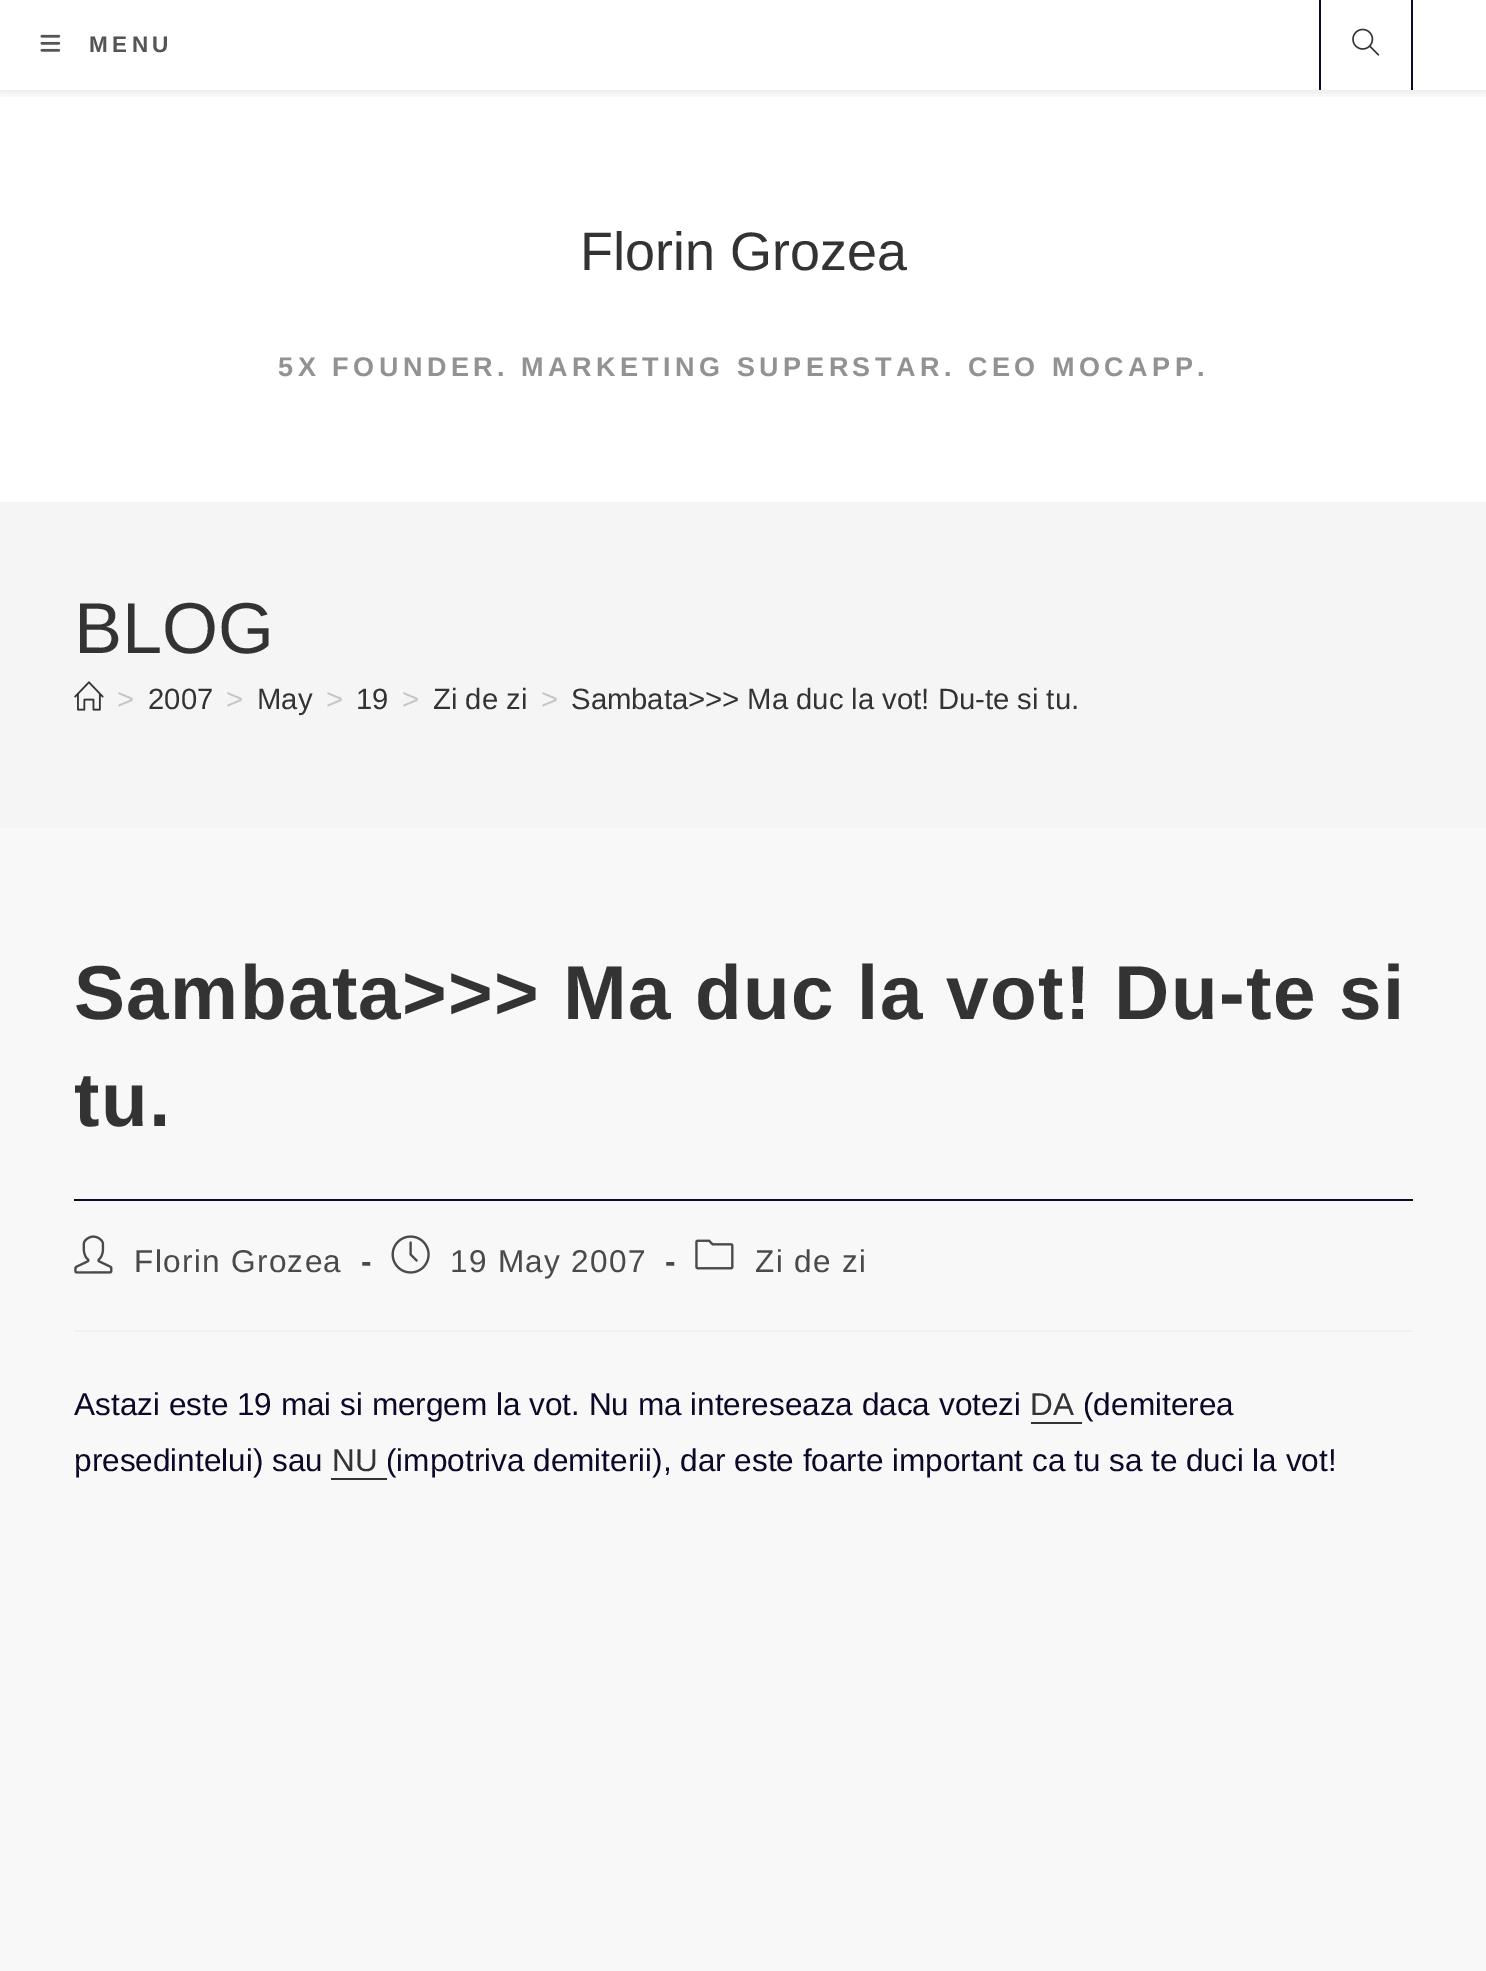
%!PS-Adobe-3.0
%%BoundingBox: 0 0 1486 1971
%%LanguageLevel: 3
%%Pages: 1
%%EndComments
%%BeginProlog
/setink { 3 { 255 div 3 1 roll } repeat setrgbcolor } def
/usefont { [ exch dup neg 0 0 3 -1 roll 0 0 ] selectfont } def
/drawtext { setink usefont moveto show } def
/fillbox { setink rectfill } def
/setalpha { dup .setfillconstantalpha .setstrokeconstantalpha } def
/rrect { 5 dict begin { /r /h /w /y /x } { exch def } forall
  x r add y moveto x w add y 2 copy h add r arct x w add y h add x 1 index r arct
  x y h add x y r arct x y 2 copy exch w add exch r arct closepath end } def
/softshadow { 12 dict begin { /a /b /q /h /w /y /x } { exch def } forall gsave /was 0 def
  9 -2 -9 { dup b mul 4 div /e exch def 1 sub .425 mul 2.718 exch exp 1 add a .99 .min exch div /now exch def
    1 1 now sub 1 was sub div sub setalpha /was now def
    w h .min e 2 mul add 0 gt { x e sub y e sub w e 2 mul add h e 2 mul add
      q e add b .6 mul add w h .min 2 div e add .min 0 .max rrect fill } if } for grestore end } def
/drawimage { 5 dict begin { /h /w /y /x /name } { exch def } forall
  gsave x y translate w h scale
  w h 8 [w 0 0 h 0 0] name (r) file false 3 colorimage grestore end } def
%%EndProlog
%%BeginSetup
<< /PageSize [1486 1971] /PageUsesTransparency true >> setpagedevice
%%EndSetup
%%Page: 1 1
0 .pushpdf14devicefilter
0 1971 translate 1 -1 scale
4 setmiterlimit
0 0 1486 1971 249 248 249 fillbox
0 0 1486 502 255 255 255 fillbox
gsave
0 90 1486 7 rectclip
0 0 0 setink
0 2 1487 90 0 5.5 0.1 softshadow
grestore
(assets/img1.rgb) 40 34 21 18 drawimage
/LiberationSans-Bold 22.5 usefont
85 85 85 setink
89 52 moveto 4.5 0 (MENU) ashow
1411 0 2 90 12 8 39 fillbox
1319 0 2 90 12 8 39 fillbox
(assets/img2.rgb) 1352 28 28 28 drawimage
(Florin Grozea) 580 270 /LiberationSans-Regular 54 51 51 51 drawtext
/LiberationSans-Bold 27 usefont
146 146 146 setink
278 376 moveto 4.5 0 (5X FOUNDER. MARKETING SUPERSTAR. CEO MOCAPP.) ashow
0 502 1486 326 245 245 245 fillbox
(BLOG) 74 653 /LiberationSans-Regular 72 51 51 51 drawtext
(assets/img3.rgb) 74 681 30 30 drawimage
(>) 117 709 /LiberationSans-Regular 29.25 198 198 198 drawtext
(2007) 148 709 /LiberationSans-Regular 29.25 51 51 51 drawtext
(>) 226 709 /LiberationSans-Regular 29.25 198 198 198 drawtext
(May) 257 709 /LiberationSans-Regular 29.25 51 51 51 drawtext
(>) 326 709 /LiberationSans-Regular 29.25 198 198 198 drawtext
(19) 356 709 /LiberationSans-Regular 29.25 51 51 51 drawtext
(>) 402 709 /LiberationSans-Regular 29.25 198 198 198 drawtext
(Zi de zi) 433 709 /LiberationSans-Regular 29.25 51 51 51 drawtext
(>) 541 709 /LiberationSans-Regular 29.25 198 198 198 drawtext
(Sambata>>> Ma duc la vot! Du-te si tu.) 571 709 /LiberationSans-Regular 29.25 51 51 51 drawtext
74 1199 1339 2 12 8 39 fillbox
/LiberationSans-Bold 76.5 usefont
51 51 51 setink
74 1019 moveto 1.35 0 (Sambata>>> Ma duc la vot! Du-te si) ashow
74 1126 moveto 1.35 0 (tu.) ashow
74 1330 1339 2 241 241 241 fillbox
(assets/img4.rgb) 74 1235 39 39 drawimage
/LiberationSans-Regular 31.5 usefont
74 74 74 setink
134 1272 moveto 1.35 0 (Florin Grozea) ashow
/LiberationSans-Bold 31.5 usefont
361 1272 moveto 1.35 0 (-) ashow
(assets/img5.rgb) 391 1235 39 39 drawimage
/LiberationSans-Regular 31.5 usefont
450 1272 moveto 1.35 0 (19 May 2007) ashow
/LiberationSans-Bold 31.5 usefont
665 1272 moveto 1.35 0 (-) ashow
(assets/img6.rgb) 695 1239 39 31 drawimage
/LiberationSans-Regular 31.5 usefont
755 1272 moveto 1.35 0 (Zi de zi) ashow
(Astazi este 19 mai si mergem la vot. Nu ma intereseaza daca votezi) 74 1415 /LiberationSans-Regular 31.5 12 8 39 drawtext
(DA) 1030 1415 /LiberationSans-Regular 31.5 51 51 51 drawtext
1031 1422 51 2 51 51 51 fillbox
(\(demiterea) 1083 1415 /LiberationSans-Regular 31.5 12 8 39 drawtext
(presedintelui\) sau) 74 1471 /LiberationSans-Regular 31.5 12 8 39 drawtext
(NU) 332 1471 /LiberationSans-Regular 31.5 51 51 51 drawtext
331 1478 56 2 51 51 51 fillbox
(\(impotriva demiterii\), dar este foarte important ca tu sa te duci la vot!) 386 1471 /LiberationSans-Regular 31.5 12 8 39 drawtext
.poppdf14devicefilter showpage
%%EOF
